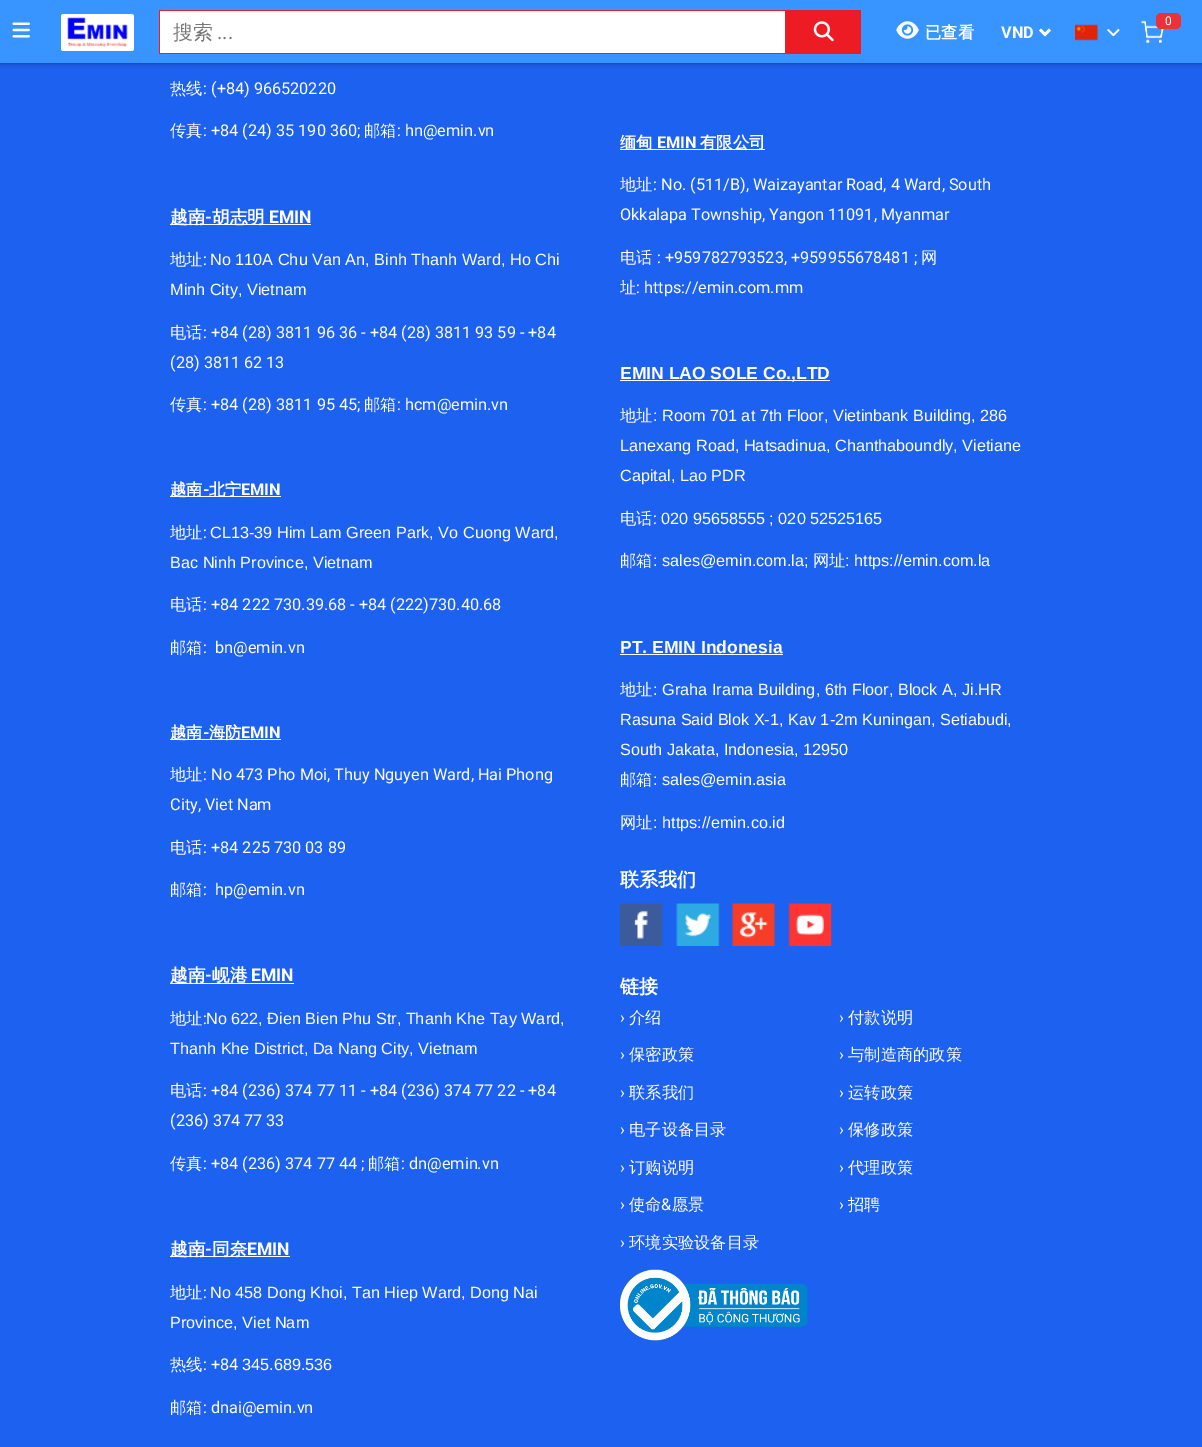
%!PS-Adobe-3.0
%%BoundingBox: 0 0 1202 1447
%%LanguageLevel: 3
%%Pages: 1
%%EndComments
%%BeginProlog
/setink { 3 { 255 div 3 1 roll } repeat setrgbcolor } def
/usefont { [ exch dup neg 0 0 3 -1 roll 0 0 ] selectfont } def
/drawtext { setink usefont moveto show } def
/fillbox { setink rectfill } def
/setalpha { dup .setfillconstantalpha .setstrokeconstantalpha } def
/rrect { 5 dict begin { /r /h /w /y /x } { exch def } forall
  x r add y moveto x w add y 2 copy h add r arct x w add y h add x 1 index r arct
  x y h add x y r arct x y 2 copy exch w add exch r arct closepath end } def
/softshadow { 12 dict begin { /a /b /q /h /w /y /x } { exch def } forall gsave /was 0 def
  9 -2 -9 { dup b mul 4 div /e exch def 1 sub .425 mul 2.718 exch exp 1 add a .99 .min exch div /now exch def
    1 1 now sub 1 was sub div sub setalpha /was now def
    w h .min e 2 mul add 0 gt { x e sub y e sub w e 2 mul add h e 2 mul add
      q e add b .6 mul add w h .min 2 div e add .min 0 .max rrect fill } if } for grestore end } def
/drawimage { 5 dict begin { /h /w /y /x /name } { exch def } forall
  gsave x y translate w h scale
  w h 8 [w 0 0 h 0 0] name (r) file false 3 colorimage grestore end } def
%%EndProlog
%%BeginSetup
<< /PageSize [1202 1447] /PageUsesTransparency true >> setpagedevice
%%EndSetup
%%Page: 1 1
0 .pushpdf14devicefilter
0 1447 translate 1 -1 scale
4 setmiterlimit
0 0 1202 1447 29 97 240 fillbox
0 0 0 setink
0 0 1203 63 0 3 0.21 softshadow
0 0 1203 63 0 3 0.21 softshadow
0 0 1202 63 56 148 255 fillbox
(assets/img1.rgb) 12 22 18 16 drawimage
255 255 255 setink
61 14 73 37 2.5 rrect fill
(assets/img2.rgb) 67 17 61 30 drawimage
160 11 625 42 255 255 255 fillbox
159 10 627 1 237 29 37 fillbox
785 10 1 44 237 29 37 fillbox
159 53 627 1 237 29 37 fillbox
159 10 1 44 237 29 37 fillbox
(搜索) 173 39 /WenQuanYiZenHei-Medium 20 119 119 119 drawtext
(...) 217 39 /Roboto-Regular 20 119 119 119 drawtext
786 10 75 44 237 28 36 fillbox
(assets/img3.rgb) 813 21 21 21 drawimage
(assets/img4.rgb) 1141 20 23 23 drawimage
237 50 55 setink
1156 13 25 16 5 rrect fill
(0) 1165 25 /Roboto-Regular 12 255 255 255 drawtext
(assets/img5.rgb) 896 21 23 18 drawimage
(已查看) 925 38 /WenQuanYiZenHei-Bold 16.25 255 255 255 drawtext
2.5 setlinewidth
1040 29.5 moveto 1045 34.5 lineto 1050 29.5 lineto stroke
(VND) 1001 38 /Roboto-Bold 16.25 255 255 255 drawtext
(assets/img6.rgb) 1075 24 23 17 drawimage
(assets/img7.rgb) 1107 29 13 8 drawimage
(热线) 170 94 /WenQuanYiZenHei-Medium 16.25 255 255 255 drawtext
(: \(+84\) 966520220) 203 94 /Roboto-Regular 16.25 255 255 255 drawtext
(传真) 170 136 /WenQuanYiZenHei-Medium 16.25 255 255 255 drawtext
(: +84 \(24\) 35 190 360;) 203 136 /Roboto-Regular 16.25 255 255 255 drawtext
(邮箱) 364 136 /WenQuanYiZenHei-Medium 16.25 255 255 255 drawtext
(: hn@emin.vn) 397 136 /Roboto-Regular 16.25 255 255 255 drawtext
170 224 141 1 255 255 255 fillbox
(越南) 170 223 /WenQuanYiZenHei-Bold 17.5 255 255 255 drawtext
(-) 205 223 /Roboto-Bold 17.5 255 255 255 drawtext
(胡志明) 212 223 /WenQuanYiZenHei-Bold 17.5 255 255 255 drawtext
(EMIN) 269 223 /Roboto-Bold 17.5 255 255 255 drawtext
(地址) 170 265 /WenQuanYiZenHei-Medium 16.25 255 255 255 drawtext
(:) 203 265 /Roboto-Regular 16.25 255 255 255 drawtext
(No 110A Chu Van An, Binh Thanh Ward, Ho Chi) 210 265 /LiberationSans-Regular 16.25 255 255 255 drawtext
(Minh City, Vietnam) 170 295 /LiberationSans-Regular 16.25 255 255 255 drawtext
(电话) 170 338 /WenQuanYiZenHei-Medium 16.25 255 255 255 drawtext
(: +84 \(28\) 3811 96 36 - +84 \(28\) 3811 93 59 - +84) 203 338 /Roboto-Regular 16.25 255 255 255 drawtext
(\(28\) 3811 62 13) 170 368 /Roboto-Regular 16.25 255 255 255 drawtext
(传真) 170 410 /WenQuanYiZenHei-Medium 16.25 255 255 255 drawtext
(: +84 \(28\) 3811 95 45;) 203 410 /Roboto-Regular 16.25 255 255 255 drawtext
(邮箱) 364 410 /WenQuanYiZenHei-Medium 16.25 255 255 255 drawtext
(: hcm@emin.vn) 397 410 /Roboto-Regular 16.25 255 255 255 drawtext
170 496 111 1 255 255 255 fillbox
(越南) 170 495 /WenQuanYiZenHei-Bold 16.25 255 255 255 drawtext
(-) 203 495 /Roboto-Bold 16.25 255 255 255 drawtext
(北宁) 209 495 /WenQuanYiZenHei-Bold 16.25 255 255 255 drawtext
(EMIN) 241 495 /Roboto-Bold 16.25 255 255 255 drawtext
(地址) 170 538 /WenQuanYiZenHei-Medium 16.25 255 255 255 drawtext
(:) 203 538 /Roboto-Regular 16.25 255 255 255 drawtext
(CL13-39 Him Lam Green Park, Vo Cuong Ward,) 210 538 /LiberationSans-Regular 16.25 255 255 255 drawtext
(Bac Ninh Province, Vietnam) 170 568 /LiberationSans-Regular 16.25 255 255 255 drawtext
(电话) 170 610 /WenQuanYiZenHei-Medium 16.25 255 255 255 drawtext
(: +84 222 730.39.68 - +84 \(222\)730.40.68) 203 610 /Roboto-Regular 16.25 255 255 255 drawtext
(邮箱) 170 653 /WenQuanYiZenHei-Medium 16.25 255 255 255 drawtext
(:) 203 653 /Roboto-Regular 16.25 255 255 255 drawtext
(bn@emin.vn) 215 653 /Roboto-Regular 16.25 255 255 255 drawtext
170 739 111 1 255 255 255 fillbox
(越南) 170 738 /WenQuanYiZenHei-Bold 16.25 255 255 255 drawtext
(-) 203 738 /Roboto-Bold 16.25 255 255 255 drawtext
(海防) 209 738 /WenQuanYiZenHei-Bold 16.25 255 255 255 drawtext
(EMIN) 241 738 /Roboto-Bold 16.25 255 255 255 drawtext
(地址) 170 780 /WenQuanYiZenHei-Medium 16.25 255 255 255 drawtext
(: No 473 Pho Moi, Thuy Nguyen Ward, Hai Phong) 203 780 /Roboto-Regular 16.25 255 255 255 drawtext
(City, Viet Nam) 170 810 /Roboto-Regular 16.25 255 255 255 drawtext
(电话) 170 853 /WenQuanYiZenHei-Medium 16.25 255 255 255 drawtext
(: +84 225 730 03 89) 203 853 /Roboto-Regular 16.25 255 255 255 drawtext
(邮箱) 170 895 /WenQuanYiZenHei-Medium 16.25 255 255 255 drawtext
(:  hp@emin.vn) 203 895 /Roboto-Regular 16.25 255 255 255 drawtext
170 983 124 1 255 255 255 fillbox
(越南) 170 981 /WenQuanYiZenHei-Bold 17.5 255 255 255 drawtext
(-) 205 981 /Roboto-Bold 17.5 255 255 255 drawtext
(岘港) 212 981 /WenQuanYiZenHei-Bold 17.5 255 255 255 drawtext
(EMIN) 251 981 /Roboto-Bold 17.5 255 255 255 drawtext
(地址) 170 1024 /WenQuanYiZenHei-Medium 16.25 255 255 255 drawtext
(:) 203 1024 /Roboto-Regular 16.25 255 255 255 drawtext
(No 622, Đien Bien Phu Str, Thanh Khe Tay Ward,) 206 1024 /LiberationSans-Regular 16.25 255 255 255 drawtext
(Thanh Khe District, Da Nang City, Vietnam) 170 1054 /LiberationSans-Regular 16.25 255 255 255 drawtext
(电话) 170 1096 /WenQuanYiZenHei-Medium 16.25 255 255 255 drawtext
(: +84 \(236\) 374 77 11 - +84 \(236\) 374 77 22 - +84) 203 1096 /Roboto-Regular 16.25 255 255 255 drawtext
(\(236\) 374 77 33) 170 1126 /Roboto-Regular 16.25 255 255 255 drawtext
(传真) 170 1169 /WenQuanYiZenHei-Medium 16.25 255 255 255 drawtext
(: +84 \(236\) 374 77 44 ;) 203 1169 /Roboto-Regular 16.25 255 255 255 drawtext
(邮箱) 368 1169 /WenQuanYiZenHei-Medium 16.25 255 255 255 drawtext
(: dn@emin.vn) 401 1169 /Roboto-Regular 16.25 255 255 255 drawtext
170 1256 120 1 255 255 255 fillbox
(越南) 170 1255 /WenQuanYiZenHei-Bold 17.5 255 255 255 drawtext
(-) 205 1255 /Roboto-Bold 17.5 255 255 255 drawtext
(同奈) 212 1255 /WenQuanYiZenHei-Bold 17.5 255 255 255 drawtext
(EMIN) 247 1255 /Roboto-Bold 17.5 255 255 255 drawtext
(地址) 170 1298 /WenQuanYiZenHei-Medium 16.25 255 255 255 drawtext
(:) 203 1298 /Roboto-Regular 16.25 255 255 255 drawtext
(No 458 Dong Khoi, Tan Hiep Ward, Dong Nai) 210 1298 /LiberationSans-Regular 16.25 255 255 255 drawtext
(Province, Viet Nam) 170 1328 /LiberationSans-Regular 16.25 255 255 255 drawtext
(热线) 170 1370 /WenQuanYiZenHei-Medium 16.25 255 255 255 drawtext
(: +84) 203 1370 /Roboto-Regular 16.25 255 255 255 drawtext
(345.689.536) 242 1370 /LiberationSans-Regular 16.25 255 255 255 drawtext
(邮箱) 170 1413 /WenQuanYiZenHei-Medium 16.25 255 255 255 drawtext
(: dnai@emin.vn) 203 1413 /Roboto-Regular 16.25 255 255 255 drawtext
620 149 145 1 255 255 255 fillbox
(缅甸) 620 148 /WenQuanYiZenHei-Bold 16.25 255 255 255 drawtext
(EMIN) 657 148 /Roboto-Bold 16.25 255 255 255 drawtext
(有限公司) 700 148 /WenQuanYiZenHei-Bold 16.25 255 255 255 drawtext
(地址) 620 190 /WenQuanYiZenHei-Medium 16.25 255 255 255 drawtext
(: No. \(511/B\), Waizayantar Road, 4 Ward, South) 653 190 /Roboto-Regular 16.25 255 255 255 drawtext
(Okkalapa Township, Yangon 11091, Myanmar) 620 220 /Roboto-Regular 16.25 255 255 255 drawtext
(电话) 620 263 /WenQuanYiZenHei-Medium 16.25 255 255 255 drawtext
(: +959782793523, +959955678481 ;) 657 263 /Roboto-Regular 16.25 255 255 255 drawtext
(网) 921 263 /WenQuanYiZenHei-Medium 16.25 255 255 255 drawtext
(址) 620 293 /WenQuanYiZenHei-Medium 16.25 255 255 255 drawtext
(: https://emin.com.mm) 636 293 /Roboto-Regular 16.25 255 255 255 drawtext
620 380 210 1 255 255 255 fillbox
(EMIN LAO SOLE Co.,LTD) 620 379 /LiberationSans-Bold 17.5 255 255 255 drawtext
(地址) 620 421 /WenQuanYiZenHei-Medium 16.25 255 255 255 drawtext
(: Room 701 at 7th Floor, Vietinbank Building, 286) 653 421 /LiberationSans-Regular 16.25 255 255 255 drawtext
(Lanexang Road, Hatsadinua, Chanthaboundly, Vietiane) 620 451 /LiberationSans-Regular 16.25 255 255 255 drawtext
(Capital, Lao PDR) 620 481 /LiberationSans-Regular 16.25 255 255 255 drawtext
(电话) 620 524 /WenQuanYiZenHei-Medium 16.25 255 255 255 drawtext
(:) 653 524 /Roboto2-Regular 16.25 255 255 255 drawtext
(020 95658555 ; 020 52525165) 661 524 /LiberationSans-Regular 16.25 255 255 255 drawtext
(邮箱) 620 566 /WenQuanYiZenHei-Medium 16.25 255 255 255 drawtext
(: sales@emin.com.la;) 653 566 /LiberationSans-Regular 16.25 255 255 255 drawtext
(网址) 813 566 /WenQuanYiZenHei-Medium 16.25 255 255 255 drawtext
(: https://emin.com.la) 845 566 /LiberationSans-Regular 16.25 255 255 255 drawtext
(PT. EMIN Indonesia) 620 653 /LiberationSans-Bold 17.5 255 255 255 drawtext
620 654 163 1 255 255 255 fillbox
(地址) 620 695 /WenQuanYiZenHei-Medium 16.25 255 255 255 drawtext
(: Graha Irama Building, 6th Floor, Block A, Ji.HR) 653 695 /LiberationSans-Regular 16.25 255 255 255 drawtext
(Rasuna Said Blok X-1, Kav 1-2m Kuningan, Setiabudi,) 620 725 /LiberationSans-Regular 16.25 255 255 255 drawtext
(South Jakata, Indonesia, 12950) 620 755 /LiberationSans-Regular 16.25 255 255 255 drawtext
(邮箱) 620 785 /WenQuanYiZenHei-Medium 16.25 255 255 255 drawtext
(: sales@emin.asia) 653 785 /LiberationSans-Regular 16.25 255 255 255 drawtext
(网址) 620 828 /WenQuanYiZenHei-Medium 16.25 255 255 255 drawtext
(: https://emin.co.id) 653 828 /LiberationSans-Regular 16.25 255 255 255 drawtext
(联系我们) 620 886 /WenQuanYiZenHei-Bold 19 255 255 255 drawtext
(assets/img8.rgb) 620 903 43 43 drawimage
(assets/img9.rgb) 676 903 44 43 drawimage
(assets/img10.rgb) 732 903 44 43 drawimage
(assets/img11.rgb) 788 903 44 43 drawimage
(链接) 620 993 /WenQuanYiZenHei-Bold 19 255 255 255 drawtext
(›) 620 1023 /Roboto-Regular 16.25 255 255 255 drawtext
(介绍) 629 1023 /WenQuanYiZenHei-Medium 16.25 255 255 255 drawtext
(›) 839 1023 /Roboto-Regular 16.25 255 255 255 drawtext
(付款说明) 848 1023 /WenQuanYiZenHei-Medium 16.25 255 255 255 drawtext
(›) 620 1060 /Roboto-Regular 16.25 255 255 255 drawtext
(保密政策) 629 1060 /WenQuanYiZenHei-Medium 16.25 255 255 255 drawtext
(›) 839 1060 /Roboto-Regular 16.25 255 255 255 drawtext
(与制造商的政策) 848 1060 /WenQuanYiZenHei-Medium 16.25 255 255 255 drawtext
(›) 620 1098 /Roboto-Regular 16.25 255 255 255 drawtext
(联系我们) 629 1098 /WenQuanYiZenHei-Medium 16.25 255 255 255 drawtext
(›) 839 1098 /Roboto-Regular 16.25 255 255 255 drawtext
(运转政策) 848 1098 /WenQuanYiZenHei-Medium 16.25 255 255 255 drawtext
(›) 620 1135 /Roboto-Regular 16.25 255 255 255 drawtext
(电子设备目录) 629 1135 /WenQuanYiZenHei-Medium 16.25 255 255 255 drawtext
(›) 839 1135 /Roboto-Regular 16.25 255 255 255 drawtext
(保修政策) 848 1135 /WenQuanYiZenHei-Medium 16.25 255 255 255 drawtext
(›) 620 1173 /Roboto-Regular 16.25 255 255 255 drawtext
(订购说明) 629 1173 /WenQuanYiZenHei-Medium 16.25 255 255 255 drawtext
(›) 839 1173 /Roboto-Regular 16.25 255 255 255 drawtext
(代理政策) 848 1173 /WenQuanYiZenHei-Medium 16.25 255 255 255 drawtext
(›) 620 1210 /Roboto-Regular 16.25 255 255 255 drawtext
(使命) 629 1210 /WenQuanYiZenHei-Medium 16.25 255 255 255 drawtext
(&) 661 1210 /Roboto-Regular 16.25 255 255 255 drawtext
(愿景) 672 1210 /WenQuanYiZenHei-Medium 16.25 255 255 255 drawtext
(›) 839 1210 /Roboto-Regular 16.25 255 255 255 drawtext
(招聘) 848 1210 /WenQuanYiZenHei-Medium 16.25 255 255 255 drawtext
(›) 620 1248 /Roboto-Regular 16.25 255 255 255 drawtext
(环境实验设备目录) 629 1248 /WenQuanYiZenHei-Medium 16.25 255 255 255 drawtext
(assets/img12.rgb) 620 1269 188 72 drawimage
.poppdf14devicefilter showpage
%%EOF
